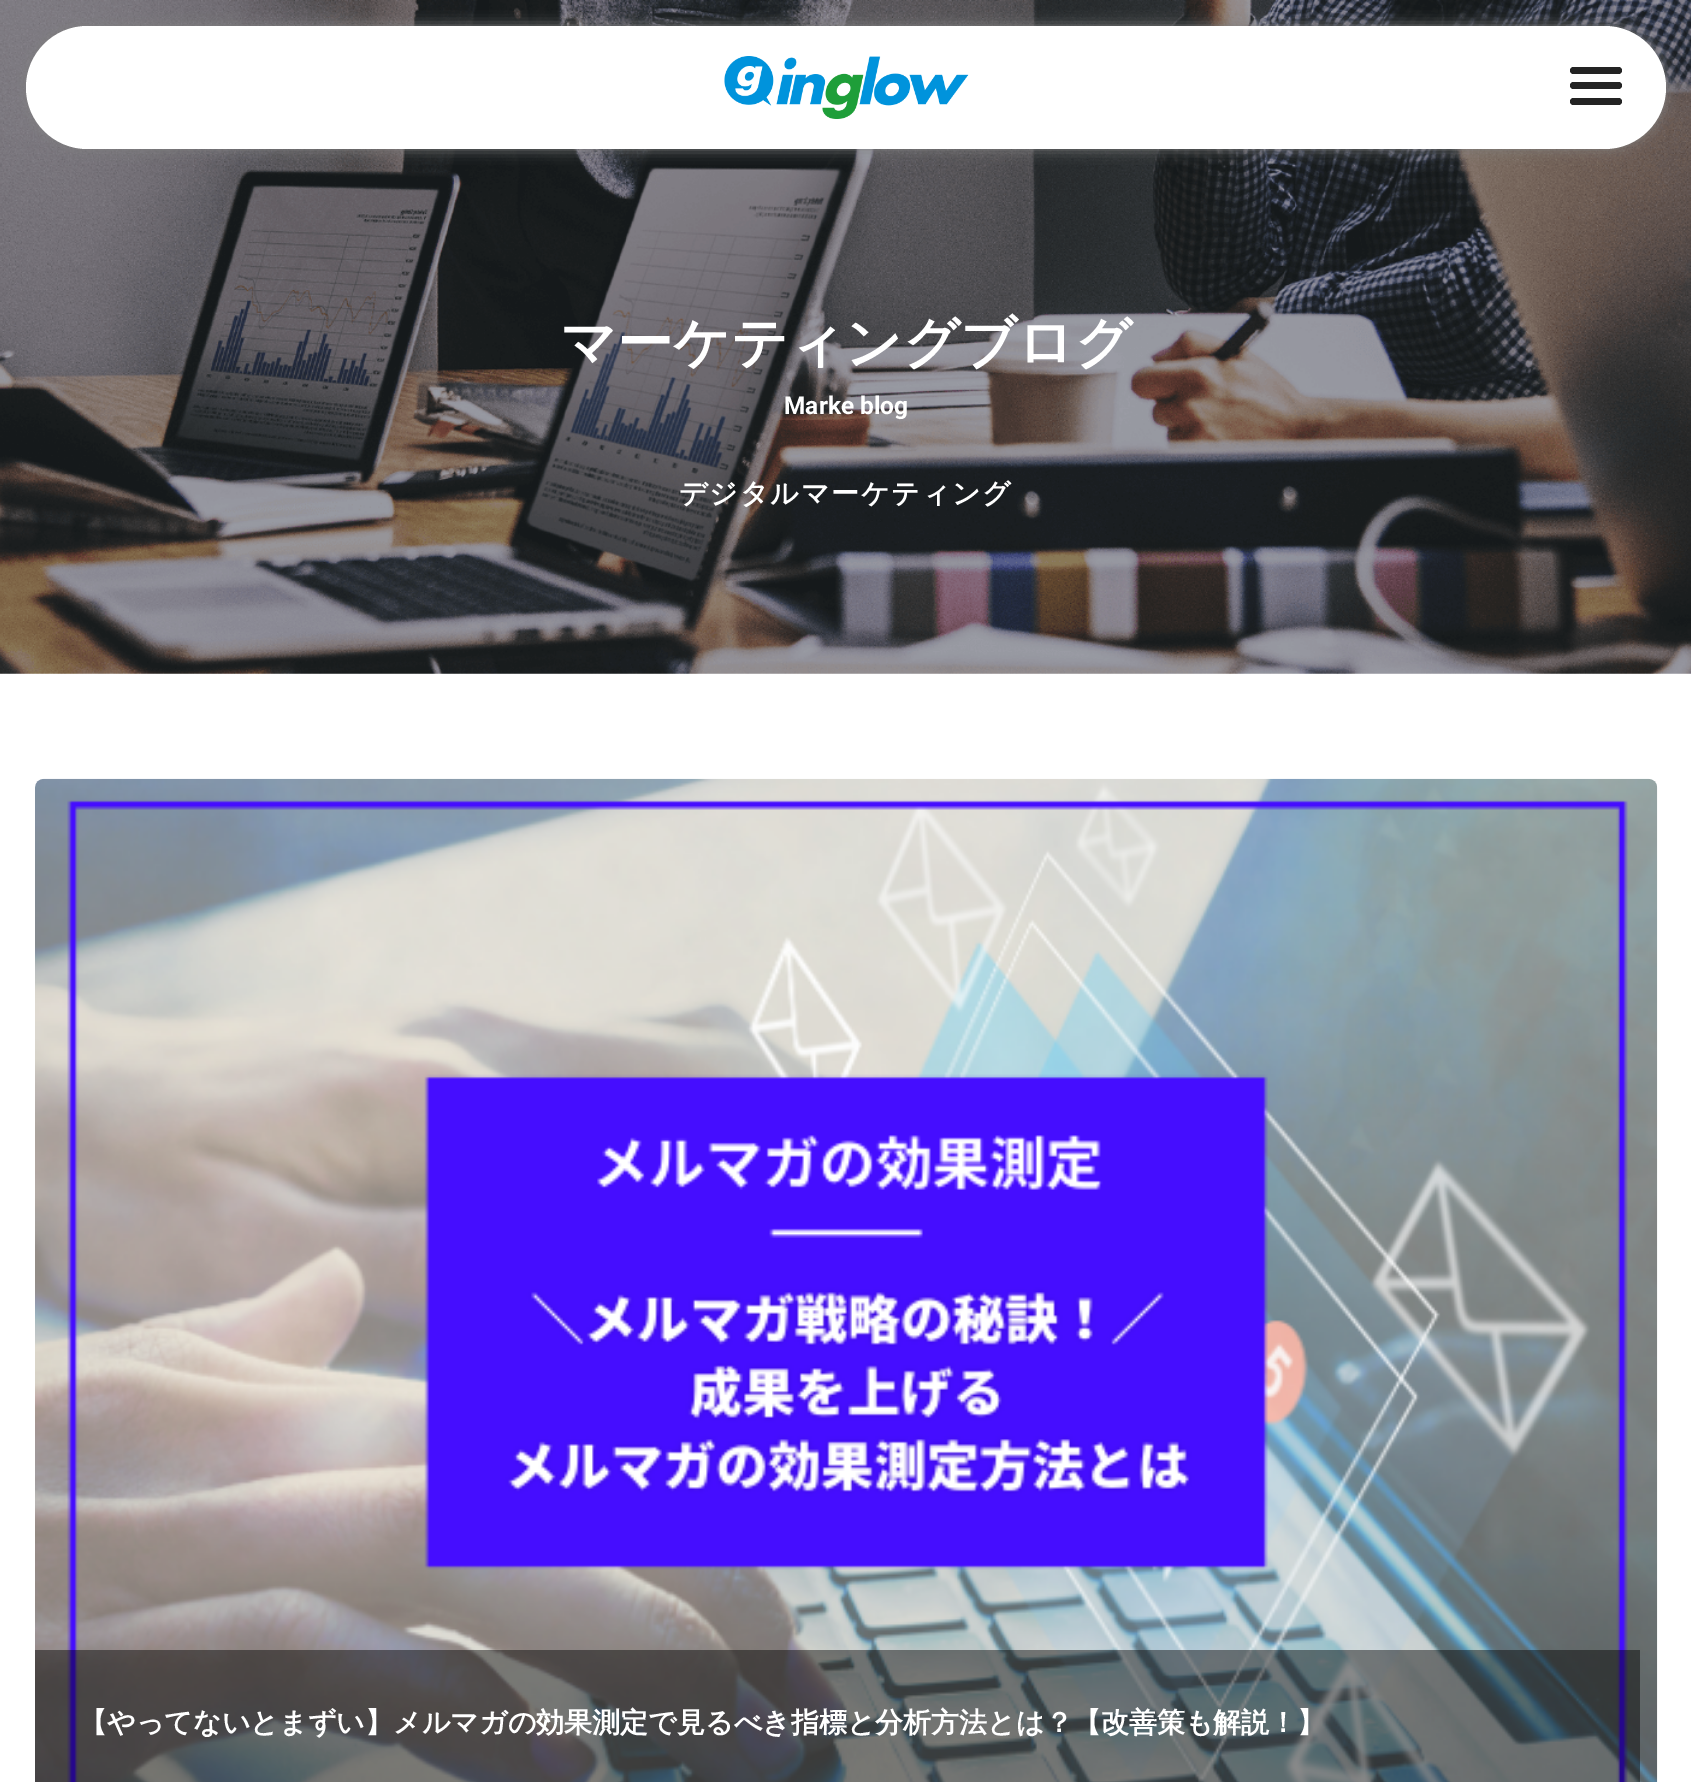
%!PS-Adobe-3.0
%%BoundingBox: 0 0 1691 1782
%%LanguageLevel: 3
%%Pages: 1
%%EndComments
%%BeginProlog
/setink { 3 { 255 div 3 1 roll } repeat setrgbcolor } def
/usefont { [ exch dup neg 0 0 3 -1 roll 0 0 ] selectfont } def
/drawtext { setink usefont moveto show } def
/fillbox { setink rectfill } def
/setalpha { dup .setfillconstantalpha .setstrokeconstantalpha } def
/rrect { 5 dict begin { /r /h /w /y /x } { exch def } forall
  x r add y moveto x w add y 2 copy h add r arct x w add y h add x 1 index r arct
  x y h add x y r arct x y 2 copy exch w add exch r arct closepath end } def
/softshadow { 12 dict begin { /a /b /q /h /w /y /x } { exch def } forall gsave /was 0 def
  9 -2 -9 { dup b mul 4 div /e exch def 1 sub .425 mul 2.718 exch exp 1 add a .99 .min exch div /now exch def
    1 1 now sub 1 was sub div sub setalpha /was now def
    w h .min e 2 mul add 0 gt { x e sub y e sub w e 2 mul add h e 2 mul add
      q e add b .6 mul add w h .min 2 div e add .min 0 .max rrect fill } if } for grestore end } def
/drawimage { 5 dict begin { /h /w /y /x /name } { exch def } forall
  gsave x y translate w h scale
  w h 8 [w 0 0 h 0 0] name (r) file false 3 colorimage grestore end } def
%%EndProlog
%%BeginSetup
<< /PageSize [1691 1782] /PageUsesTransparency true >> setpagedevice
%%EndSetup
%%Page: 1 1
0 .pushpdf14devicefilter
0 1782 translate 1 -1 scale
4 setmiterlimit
0 0 1691 1782 255 255 255 fillbox
(assets/img2.rgb) 0 0 1691 674 drawimage
128 128 128 setink
26 26 1640 123 61.5 7 1 softshadow
255 255 255 setink
26 26 1640 123 61.5 rrect fill
(assets/img1.rgb) 724 56 245 63 drawimage
35 35 35 setink
1570 67 52 7 3.5 rrect fill
1570 82 52 7 3.5 rrect fill
1570 98 52 7 3.5 rrect fill
(マーケティングブログ) 560 362 /WenQuanYiZenHei-Bold 56 255 255 255 drawtext
(Marke blog) 784 414 /Roboto-Bold 24.5 255 255 255 drawtext
/WenQuanYiZenHei-Bold 28 usefont
679 503 moveto 1.75 0 (デジタルマーケティング) ashow
(assets/img3.rgb) 35 778 1623 1004 drawimage
0.45 setalpha
35 1650 1605 132 0 0 0 fillbox
1 setalpha
(【やってないとまずい】メルマガの効果測定で見るべき指標と分析方法とは？【改善策も解説！】) 79 1732 /WenQuanYiZenHei-Bold 28 255 255 255 drawtext
.poppdf14devicefilter showpage
%%EOF
